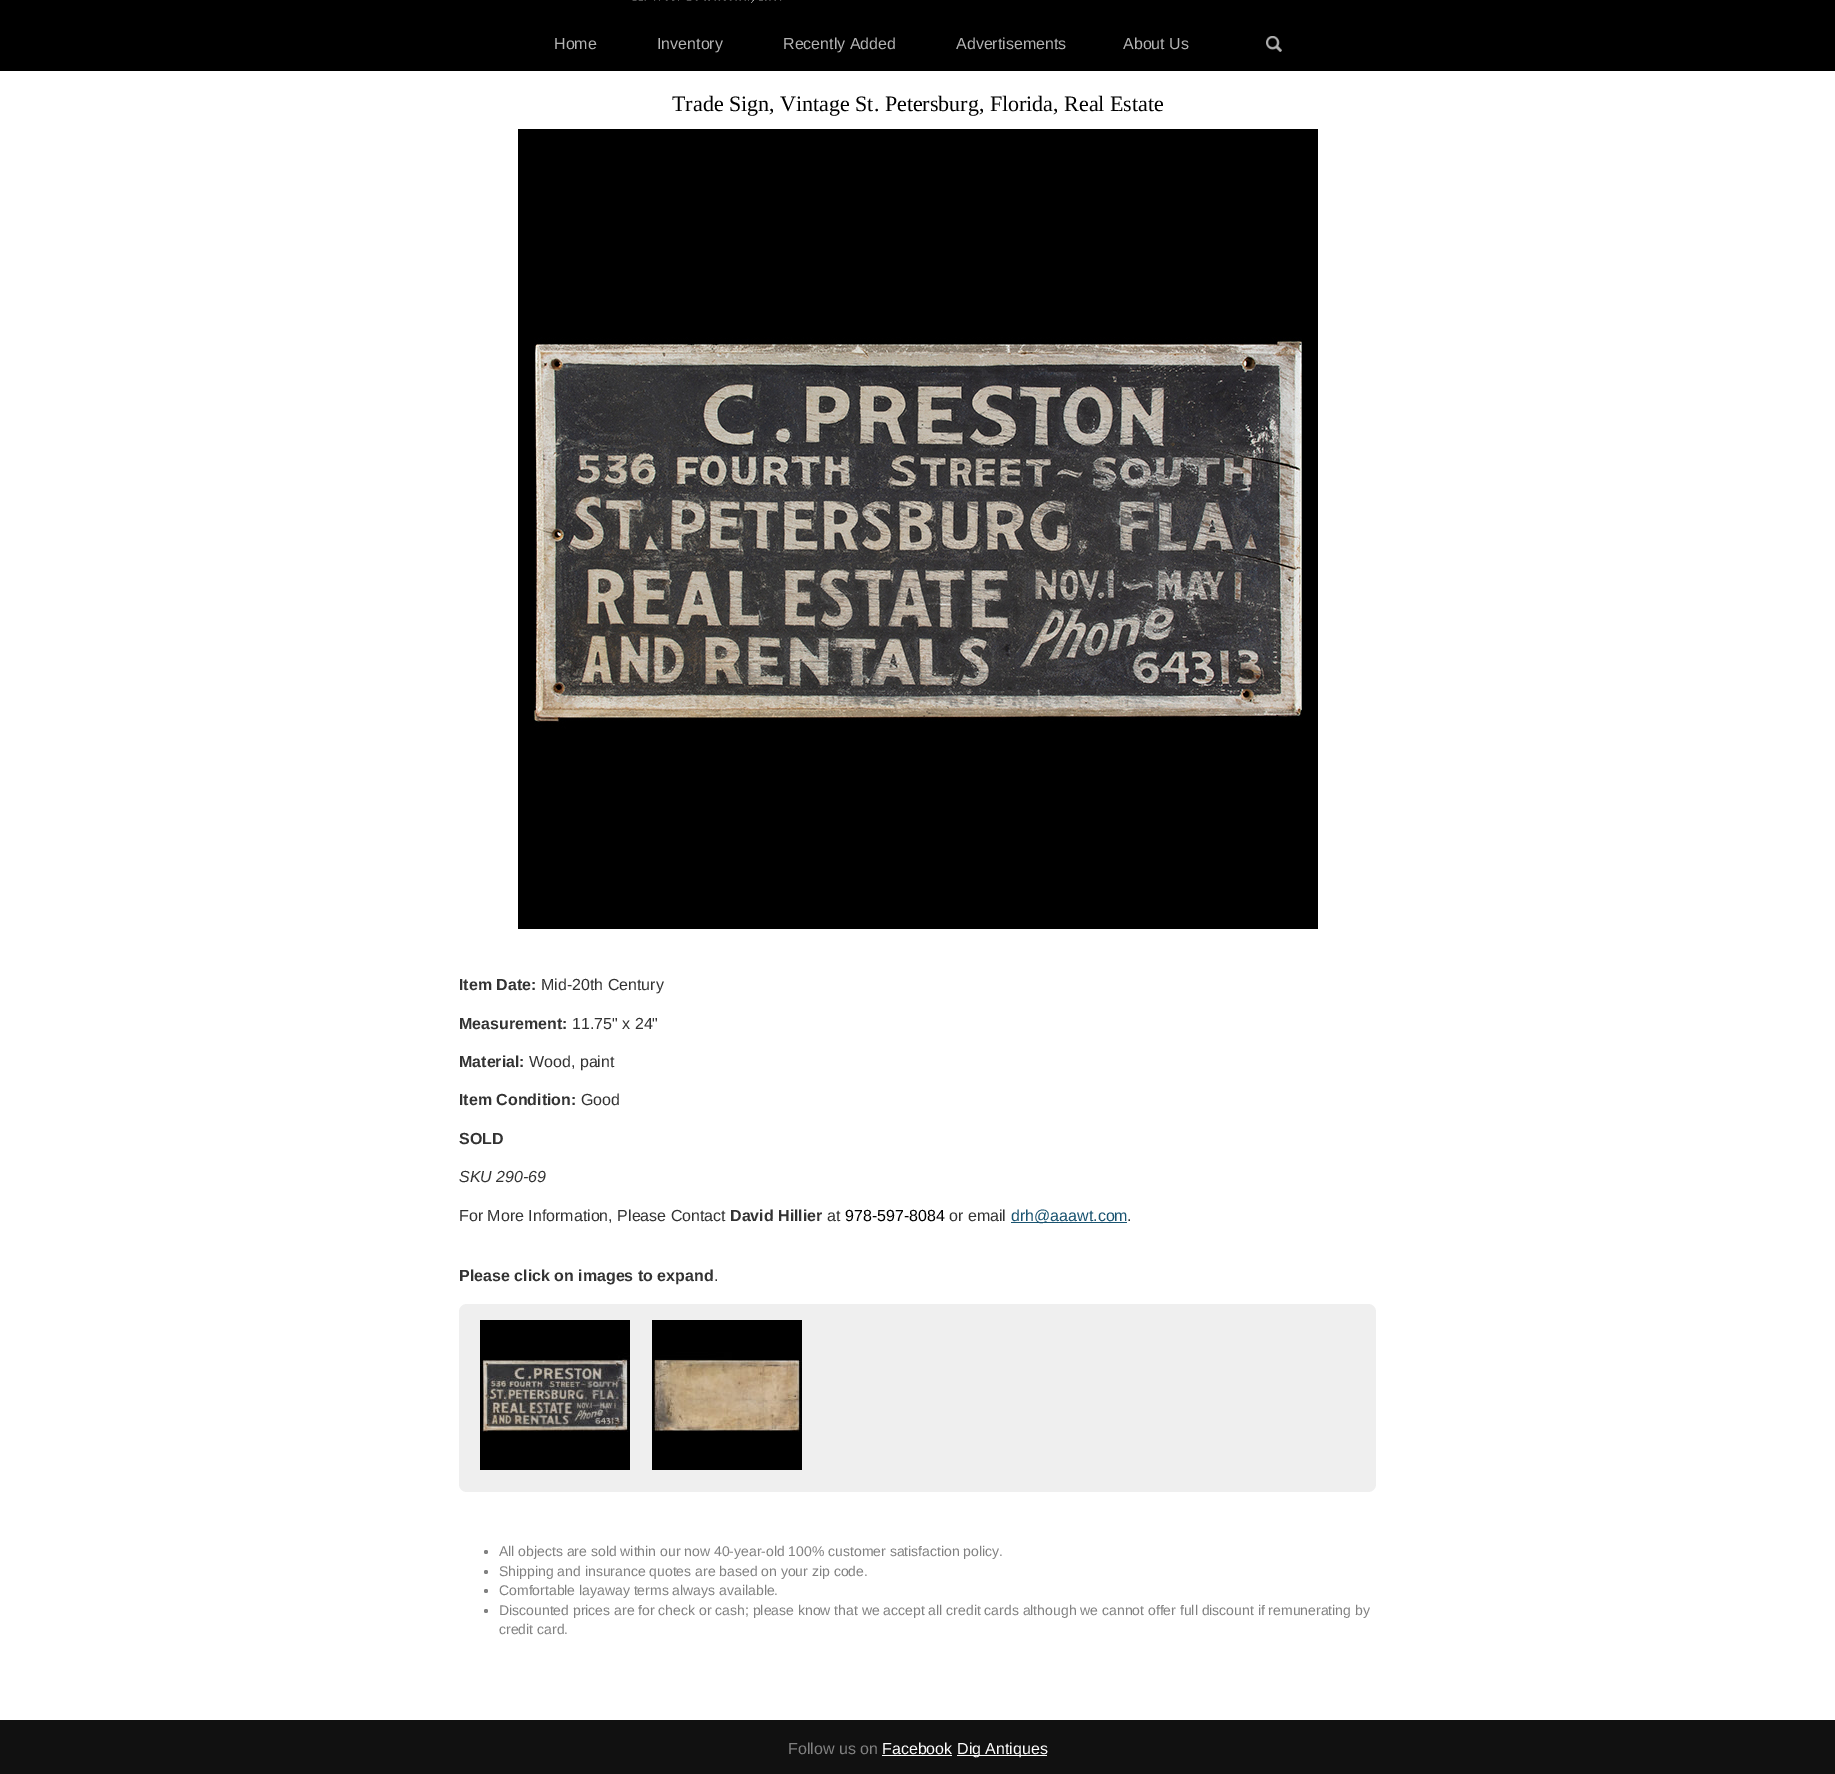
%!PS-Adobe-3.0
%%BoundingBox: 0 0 1835 1774
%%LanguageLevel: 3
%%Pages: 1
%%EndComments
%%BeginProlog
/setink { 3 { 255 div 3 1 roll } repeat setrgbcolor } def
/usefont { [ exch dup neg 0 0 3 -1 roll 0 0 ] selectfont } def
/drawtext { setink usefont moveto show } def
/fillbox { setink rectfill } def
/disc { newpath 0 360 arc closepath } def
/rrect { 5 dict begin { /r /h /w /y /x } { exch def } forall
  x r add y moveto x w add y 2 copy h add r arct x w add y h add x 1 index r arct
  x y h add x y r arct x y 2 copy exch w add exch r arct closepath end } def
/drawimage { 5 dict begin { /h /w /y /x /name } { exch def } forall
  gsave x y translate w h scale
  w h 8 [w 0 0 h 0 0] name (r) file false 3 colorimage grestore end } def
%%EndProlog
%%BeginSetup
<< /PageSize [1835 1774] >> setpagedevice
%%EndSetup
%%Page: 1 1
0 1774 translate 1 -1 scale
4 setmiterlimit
0 0 1835 1774 255 255 255 fillbox
0 0 1835 71 0 0 0 fillbox
(assets/img1.rgb) 632 0 150 3 drawimage
(Home) 554 49 /LiberationSans-Regular 16 179 179 179 drawtext
(Inventory) 657 49 /LiberationSans-Regular 16 179 179 179 drawtext
(Recently Added) 783 49 /LiberationSans-Regular 16 179 179 179 drawtext
(Advertisements) 956 49 /LiberationSans-Regular 16 179 179 179 drawtext
(About Us) 1123 49 /LiberationSans-Regular 16 179 179 179 drawtext
(assets/img2.rgb) 1266 36 16 16 drawimage
(Trade Sign, Vintage St. Petersburg, Florida, Real Estate) 672 111 /LiberationSerif-Regular 22 0 0 0 drawtext
(assets/img3.rgb) 518 129 800 800 drawimage
(Item Date:) 459 990 /LiberationSans-Bold 16 51 51 51 drawtext
(Mid-20th Century) 541 990 /LiberationSans-Regular 16 51 51 51 drawtext
(Measurement:) 459 1029 /LiberationSans-Bold 16 51 51 51 drawtext
(11.75" x 24") 572 1029 /LiberationSans-Regular 16 51 51 51 drawtext
(Material:) 459 1067 /LiberationSans-Bold 16 51 51 51 drawtext
(Wood, paint) 529 1067 /LiberationSans-Regular 16 51 51 51 drawtext
(Item Condition:) 459 1105 /LiberationSans-Bold 16 51 51 51 drawtext
(Good) 581 1105 /LiberationSans-Regular 16 51 51 51 drawtext
(SOLD) 459 1144 /LiberationSans-Bold 16 51 51 51 drawtext
(SKU 290-69) 459 1182 /LiberationSans-Italic 16 51 51 51 drawtext
(For More Information, Please Contact) 459 1221 /LiberationSans-Regular 16 51 51 51 drawtext
(David Hillier) 730 1221 /LiberationSans-Bold 16 51 51 51 drawtext
(at) 827 1221 /LiberationSans-Regular 16 51 51 51 drawtext
(978-597-8084) 845 1221 /LiberationSans-Regular 16 0 0 0 drawtext
(or email) 949 1221 /LiberationSans-Regular 16 51 51 51 drawtext
1011 1222 116 1 25 83 112 fillbox
(drh@aaawt.com) 1011 1221 /LiberationSans-Regular 16 25 83 112 drawtext
(.) 1127 1221 /LiberationSans-Regular 16 51 51 51 drawtext
(Please click on images to expand) 459 1281 /LiberationSans-Bold 16 51 51 51 drawtext
(.) 714 1281 /LiberationSans-Regular 16 51 51 51 drawtext
239 239 239 setink
459 1304 917 188 8 rrect fill
(assets/img4.rgb) 480 1320 150 150 drawimage
(assets/img5.rgb) 652 1320 150 150 drawimage
129 129 129 setink
486 1552 2 disc fill
(All objects are sold within our now 40-year-old 100% customer satisfaction policy.) 499 1556 /LiberationSans-Regular 14 129 129 129 drawtext
486 1572 2 disc fill
(Shipping and insurance quotes are based on your zip code.) 499 1576 /LiberationSans-Regular 14 129 129 129 drawtext
486 1591 2 disc fill
(Comfortable layaway terms always available.) 499 1595 /LiberationSans-Regular 14 129 129 129 drawtext
486 1611 2 disc fill
(Discounted prices are for check or cash; please know that we accept all credit cards although we cannot offer full discount if remunerating by) 499 1615 /LiberationSans-Regular 14 129 129 129 drawtext
(credit card.) 499 1634 /LiberationSans-Regular 14 129 129 129 drawtext
0 1720 1835 54 17 17 17 fillbox
(Follow us on) 788 1754 /LiberationSans-Regular 16 129 129 129 drawtext
(Facebook) 882 1754 /LiberationSans-Regular 16 255 255 255 drawtext
882 1755 70 1 255 255 255 fillbox
957 1755 90 1 255 255 255 fillbox
(Dig Antiques) 957 1754 /LiberationSans-Regular 16 255 255 255 drawtext
showpage
%%EOF
